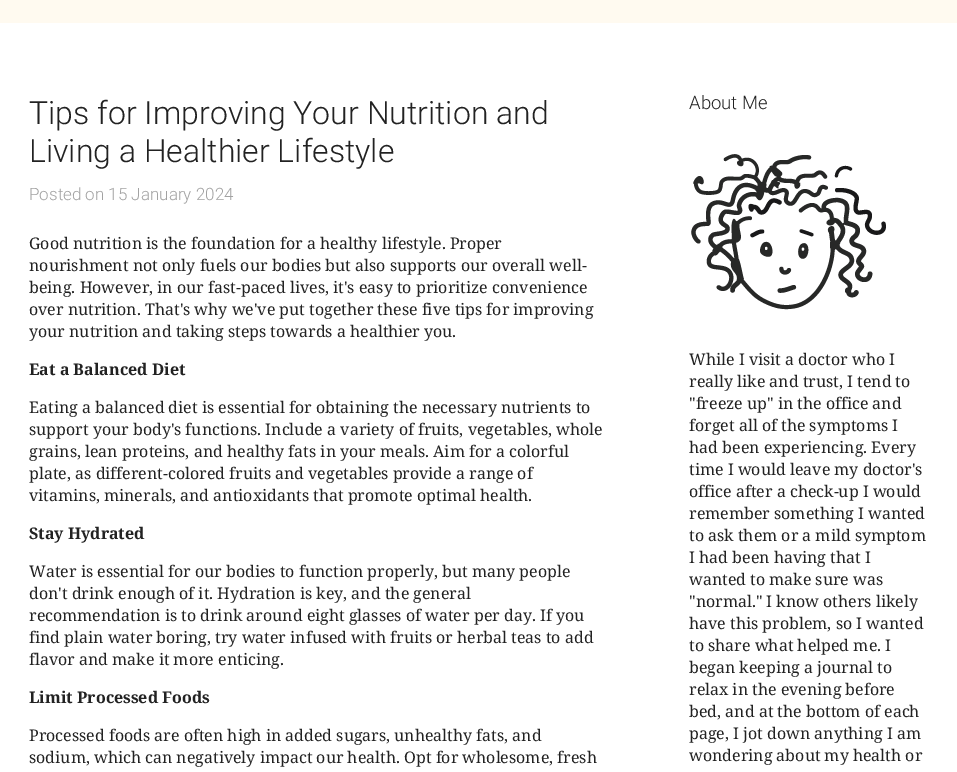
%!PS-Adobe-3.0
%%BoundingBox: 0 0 957 772
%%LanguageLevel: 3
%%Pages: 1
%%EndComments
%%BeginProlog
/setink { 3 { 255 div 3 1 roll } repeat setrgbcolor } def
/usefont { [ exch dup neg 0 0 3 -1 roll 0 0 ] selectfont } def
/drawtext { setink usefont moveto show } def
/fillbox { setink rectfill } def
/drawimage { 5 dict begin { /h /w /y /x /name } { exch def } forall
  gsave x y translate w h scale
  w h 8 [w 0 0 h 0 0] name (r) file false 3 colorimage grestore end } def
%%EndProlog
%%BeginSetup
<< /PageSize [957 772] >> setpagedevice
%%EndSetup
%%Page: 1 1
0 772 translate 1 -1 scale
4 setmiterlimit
0 0 957 772 255 255 255 fillbox
0 0 957 23 255 250 240 fillbox
(Tips for Improving Your Nutrition and) 29 124 /Roboto-Light 32 34 34 34 drawtext
(Living a Healthier Lifestyle) 29 162 /Roboto-Light 32 34 34 34 drawtext
(Posted on 15 January 2024) 29 200 /Roboto-Light 17 162 162 162 drawtext
(Good nutrition is the foundation for a healthy lifestyle. Proper) 29 249 /NotoSerif-Regular 16 34 34 34 drawtext
(nourishment not only fuels our bodies but also supports our overall well-) 29 271 /NotoSerif-Regular 16 34 34 34 drawtext
(being. However, in our fast-paced lives, it's easy to prioritize convenience) 29 293 /NotoSerif-Regular 16 34 34 34 drawtext
(over nutrition. That's why we've put together these five tips for improving) 29 315 /NotoSerif-Regular 16 34 34 34 drawtext
(your nutrition and taking steps towards a healthier you.) 29 337 /NotoSerif-Regular 16 34 34 34 drawtext
(Eat a Balanced Diet) 29 375 /NotoSerif-Bold 16 34 34 34 drawtext
(Eating a balanced diet is essential for obtaining the necessary nutrients to) 29 413 /NotoSerif-Regular 16 34 34 34 drawtext
(support your body's functions. Include a variety of fruits, vegetables, whole) 29 435 /NotoSerif-Regular 16 34 34 34 drawtext
(grains, lean proteins, and healthy fats in your meals. Aim for a colorful) 29 457 /NotoSerif-Regular 16 34 34 34 drawtext
(plate, as different-colored fruits and vegetables provide a range of) 29 479 /NotoSerif-Regular 16 34 34 34 drawtext
(vitamins, minerals, and antioxidants that promote optimal health.) 29 501 /NotoSerif-Regular 16 34 34 34 drawtext
(Stay Hydrated) 29 539 /NotoSerif-Bold 16 34 34 34 drawtext
(Water is essential for our bodies to function properly, but many people) 29 577 /NotoSerif-Regular 16 34 34 34 drawtext
(don't drink enough of it. Hydration is key, and the general) 29 599 /NotoSerif-Regular 16 34 34 34 drawtext
(recommendation is to drink around eight glasses of water per day. If you) 29 621 /NotoSerif-Regular 16 34 34 34 drawtext
(find plain water boring, try water infused with fruits or herbal teas to add) 29 643 /NotoSerif-Regular 16 34 34 34 drawtext
(flavor and make it more enticing.) 29 665 /NotoSerif-Regular 16 34 34 34 drawtext
(Limit Processed Foods) 29 703 /NotoSerif-Bold 16 34 34 34 drawtext
(Processed foods are often high in added sugars, unhealthy fats, and) 29 741 /NotoSerif-Regular 16 34 34 34 drawtext
(sodium, which can negatively impact our health. Opt for wholesome, fresh) 29 763 /NotoSerif-Regular 16 34 34 34 drawtext
(About Me) 689 109 /Roboto-Light 18.5 34 34 34 drawtext
(assets/img1.rgb) 691 154 195 156 drawimage
(While I visit a doctor who I) 689 365 /NotoSerif-Regular 16 34 34 34 drawtext
(really like and trust, I tend to) 689 387 /NotoSerif-Regular 16 34 34 34 drawtext
("freeze up" in the office and) 689 409 /NotoSerif-Regular 16 34 34 34 drawtext
(forget all of the symptoms I) 689 431 /NotoSerif-Regular 16 34 34 34 drawtext
(had been experiencing. Every) 689 453 /NotoSerif-Regular 16 34 34 34 drawtext
(time I would leave my doctor's) 689 475 /NotoSerif-Regular 16 34 34 34 drawtext
(office after a check-up I would) 689 497 /NotoSerif-Regular 16 34 34 34 drawtext
(remember something I wanted) 689 519 /NotoSerif-Regular 16 34 34 34 drawtext
(to ask them or a mild symptom) 689 541 /NotoSerif-Regular 16 34 34 34 drawtext
(I had been having that I) 689 563 /NotoSerif-Regular 16 34 34 34 drawtext
(wanted to make sure was) 689 585 /NotoSerif-Regular 16 34 34 34 drawtext
("normal." I know others likely) 689 607 /NotoSerif-Regular 16 34 34 34 drawtext
(have this problem, so I wanted) 689 629 /NotoSerif-Regular 16 34 34 34 drawtext
(to share what helped me. I) 689 651 /NotoSerif-Regular 16 34 34 34 drawtext
(began keeping a journal to) 689 673 /NotoSerif-Regular 16 34 34 34 drawtext
(relax in the evening before) 689 695 /NotoSerif-Regular 16 34 34 34 drawtext
(bed, and at the bottom of each) 689 717 /NotoSerif-Regular 16 34 34 34 drawtext
(page, I jot down anything I am) 689 739 /NotoSerif-Regular 16 34 34 34 drawtext
(wondering about my health or) 689 761 /NotoSerif-Regular 16 34 34 34 drawtext
showpage
%%EOF
